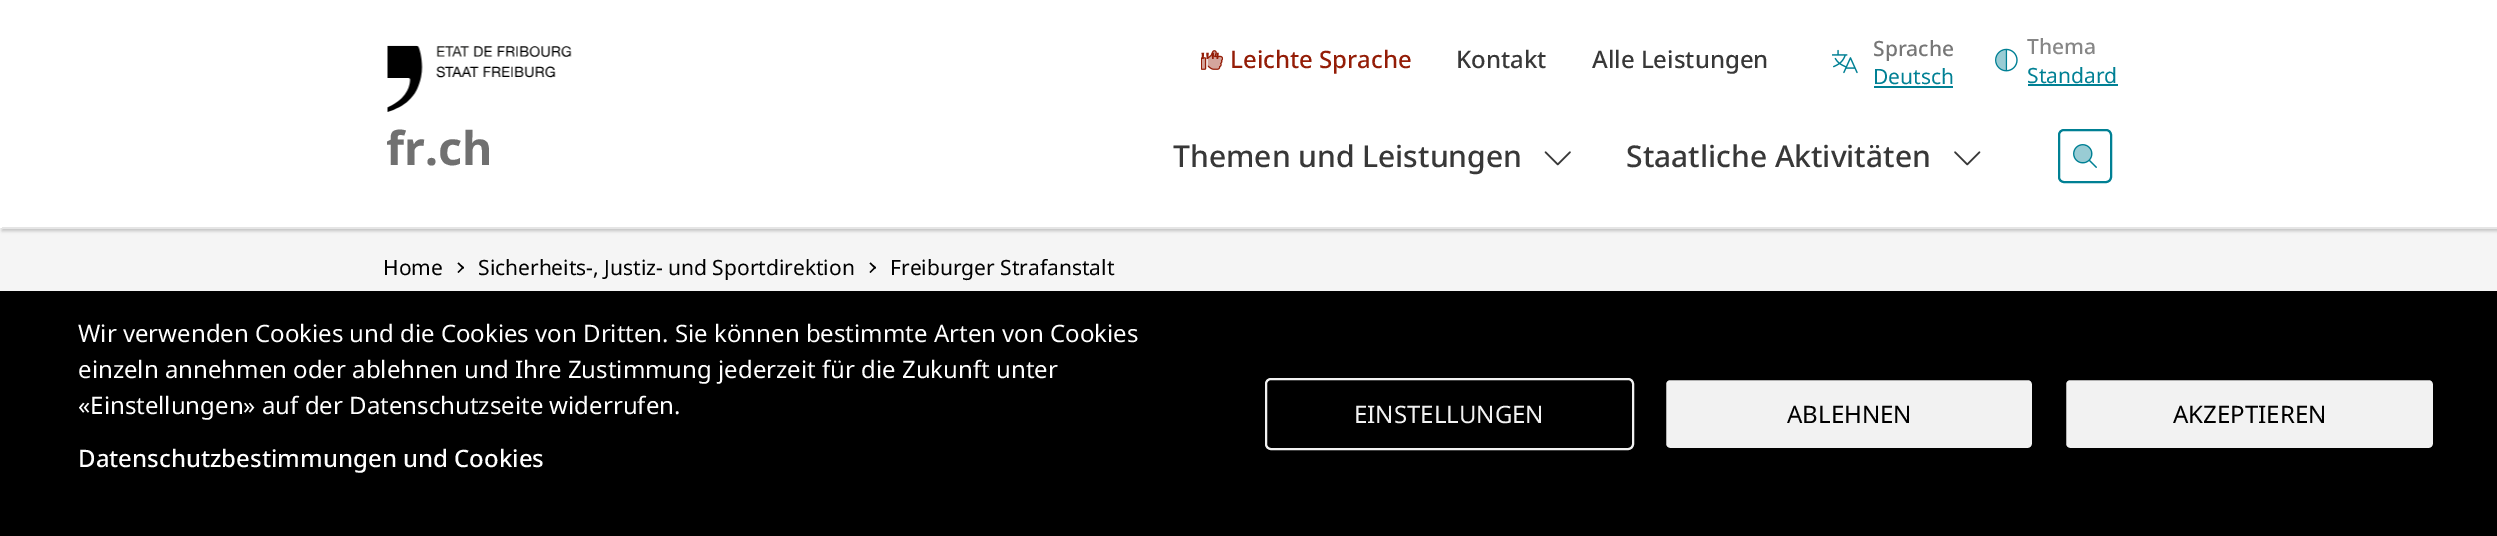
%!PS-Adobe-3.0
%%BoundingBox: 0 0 2497 536
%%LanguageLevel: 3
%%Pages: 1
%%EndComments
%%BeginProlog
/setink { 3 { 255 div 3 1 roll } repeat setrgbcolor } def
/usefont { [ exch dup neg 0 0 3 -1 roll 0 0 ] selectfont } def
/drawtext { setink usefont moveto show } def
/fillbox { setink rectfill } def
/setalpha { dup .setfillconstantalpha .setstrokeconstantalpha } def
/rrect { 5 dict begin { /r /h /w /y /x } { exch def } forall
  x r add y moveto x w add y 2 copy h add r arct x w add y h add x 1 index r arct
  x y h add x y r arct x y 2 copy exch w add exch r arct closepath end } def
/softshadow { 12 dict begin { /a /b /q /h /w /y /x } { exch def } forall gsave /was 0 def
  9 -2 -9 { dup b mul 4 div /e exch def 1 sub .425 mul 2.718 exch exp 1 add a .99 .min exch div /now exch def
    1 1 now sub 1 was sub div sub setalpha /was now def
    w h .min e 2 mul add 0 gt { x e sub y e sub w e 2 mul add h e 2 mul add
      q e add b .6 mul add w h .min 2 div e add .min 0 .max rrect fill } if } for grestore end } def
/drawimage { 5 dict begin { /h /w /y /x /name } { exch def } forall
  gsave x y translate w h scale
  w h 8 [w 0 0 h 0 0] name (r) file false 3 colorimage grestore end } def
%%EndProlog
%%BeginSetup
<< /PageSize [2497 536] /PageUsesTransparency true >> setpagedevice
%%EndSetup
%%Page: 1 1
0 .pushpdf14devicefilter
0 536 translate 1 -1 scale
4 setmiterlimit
0 0 2497 536 245 245 245 fillbox
0 0 0 setink
2 3 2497 228 0 1.5 0.2 softshadow
0 0 2497 228 255 255 255 fillbox
(assets/img1.rgb) 387 45 185 67 drawimage
(fr.ch) 386 165 /NotoSans-Bold 46.5 112 112 112 drawtext
(assets/img2.rgb) 1201 50 22 20 drawimage
("") 1200 70 /NotoSans-Medium 24 148 29 7 drawtext
(Leichte Sprache) 1230 68 /NotoSans-Medium 24 148 29 7 drawtext
(Kontakt) 1456 68 /NotoSans-Medium 24 56 56 56 drawtext
(Alle Leistungen) 1592 68 /NotoSans-Medium 24 56 56 56 drawtext
(Themen und Leistungen) 1173 167 /NotoSans-Medium 30 56 56 56 drawtext
(assets/img3.rgb) 1544 151 27 15 drawimage
(Staatliche Aktivitäten) 1626 167 /NotoSans-Medium 30 56 56 56 drawtext
(assets/img4.rgb) 1954 151 27 15 drawimage
2 227 2495 2 229 229 229 fillbox
(assets/img5.rgb) 1832 49 26 25 drawimage
(Sprache) 1873 56 /NotoSans-Medium 21 118 118 118 drawtext
(Deutsch) 1873 84 /NotoSans-Regular 21 0 128 148 drawtext
1874 86 79 2 0 128 148 fillbox
(assets/img6.rgb) 1995 48 23 24 drawimage
(Thema) 2027 54 /NotoSans-Medium 21 134 134 134 drawtext
(Standard) 2027 83 /NotoSans-Regular 21 0 128 148 drawtext
2028 84 90 2 0 128 148 fillbox
2 setlinewidth
2059 130 52 52 5 rrect stroke
(assets/img7.rgb) 2073 144 24 24 drawimage
(Home) 383 275 /NotoSans-Regular 21 0 0 0 drawtext
458.5 262.5 moveto 464 267.5 lineto 463 269 lineto 457.5 263.5 lineto closepath fill
463 266.5 moveto 464 267.5 lineto 458.5 273 lineto 457.5 272 lineto closepath fill
(Sicherheits-, Justiz- und Sportdirektion) 478 275 /NotoSans-Regular 21 0 0 0 drawtext
870.5 262.5 moveto 876 267.5 lineto 875 269 lineto 869.5 263.5 lineto closepath fill
875 266.5 moveto 876 267.5 lineto 870.5 273 lineto 869.5 272 lineto closepath fill
(Freiburger Strafanstalt) 890 275 /NotoSans-Regular 21 0 0 0 drawtext
0 291 2497 245 0 0 0 fillbox
(Wir verwenden Cookies und die Cookies von Dritten. Sie können bestimmte Arten von Cookies) 78 342 /NotoSans-Regular 24 255 255 255 drawtext
(einzeln annehmen oder ablehnen und Ihre Zustimmung jederzeit für die Zukunft unter) 78 378 /NotoSans-Regular 24 255 255 255 drawtext
(«Einstellungen» auf der Datenschutzseite widerrufen.) 78 414 /NotoSans-Regular 24 255 255 255 drawtext
(Datenschutzbestimmungen und Cookies) 78 467 /NotoSans-Medium 24 255 255 255 drawtext
242 242 242 setink
1266 379 367 70 5 rrect stroke
(EINSTELLUNGEN) 1354 423 /NotoSans-Regular 24 242 242 242 drawtext
1665 379 368 70 5 rrect gsave fill grestore
0 0 0 setink
stroke
(ABLEHNEN) 1787 423 /NotoSans-Regular 24 0 0 0 drawtext
242 242 242 setink
2065 379 369 70 5 rrect gsave fill grestore
0 0 0 setink
stroke
(AKZEPTIEREN) 2173 423 /NotoSans-Regular 24 0 0 0 drawtext
.poppdf14devicefilter showpage
%%EOF
